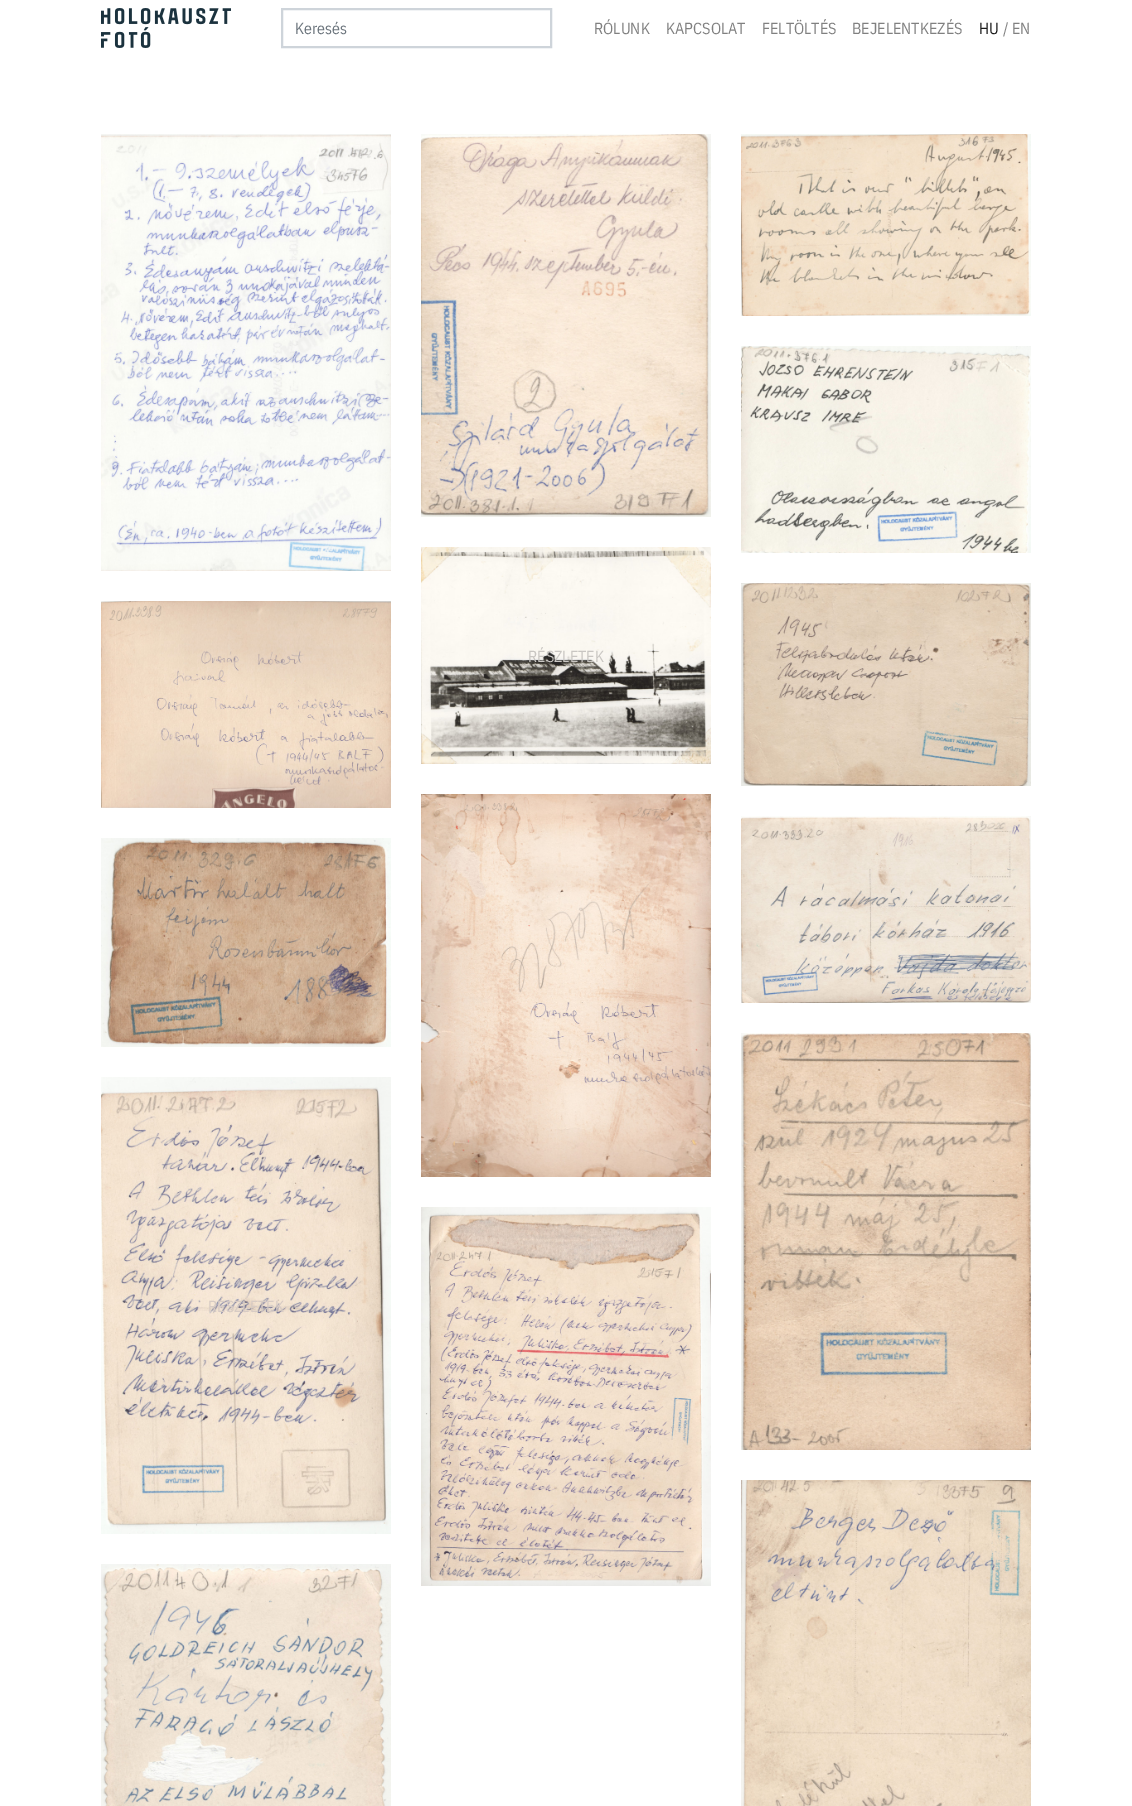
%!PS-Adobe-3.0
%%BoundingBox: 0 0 1132 1806
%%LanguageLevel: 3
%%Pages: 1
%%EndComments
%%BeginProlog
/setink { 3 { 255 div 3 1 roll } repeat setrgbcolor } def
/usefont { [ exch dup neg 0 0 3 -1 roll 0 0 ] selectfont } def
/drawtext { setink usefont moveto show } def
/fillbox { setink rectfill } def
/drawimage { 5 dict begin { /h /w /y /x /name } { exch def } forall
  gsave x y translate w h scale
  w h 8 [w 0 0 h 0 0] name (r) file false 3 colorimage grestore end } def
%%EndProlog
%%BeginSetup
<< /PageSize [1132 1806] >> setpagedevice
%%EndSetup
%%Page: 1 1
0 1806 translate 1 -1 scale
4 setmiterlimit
0 0 1132 1806 255 255 255 fillbox
(assets/img1.rgb) 101 8 130 40 drawimage
206 212 218 setink
2 setlinewidth
282 9 269 38 rectstroke
(Keresés) 295 34 /IBMPlexSansCondensed-Regular 16 108 117 125 drawtext
(RÓLUNK) 594 34 /IBMPlexSansCondensed-Regular 16 128 128 128 drawtext
(KAPCSOLAT) 666 34 /IBMPlexSansCondensed-Regular 16 128 128 128 drawtext
(FELTÖLTÉS) 762 34 /IBMPlexSansCondensed-Regular 16 128 128 128 drawtext
(BEJELENTKEZÉS) 852 34 /IBMPlexSansCondensed-Regular 16 128 128 128 drawtext
(HU) 979 34 /IBMPlexSansCondensed-Regular 16 26 26 26 drawtext
(/) 1003 34 /IBMPlexSansCondensed-Regular 16 128 128 128 drawtext
(EN) 1012 34 /IBMPlexSansCondensed-Regular 16 128 128 128 drawtext
(assets/img2.rgb) 101 134 290 437 drawimage
(assets/img3.rgb) 421 134 290 383 drawimage
(assets/img4.rgb) 741 134 290 182 drawimage
(assets/img5.rgb) 741 346 290 207 drawimage
(assets/img6.rgb) 101 601 290 207 drawimage
(assets/img7.rgb) 421 547 290 217 drawimage
(RÉSZLETEK) 528 662 /IBMPlexSansCondensed-Regular 16 201 198 194 drawtext
(assets/img8.rgb) 741 583 290 203 drawimage
(assets/img9.rgb) 101 838 290 209 drawimage
(assets/img10.rgb) 421 794 290 383 drawimage
(assets/img11.rgb) 741 816 290 187 drawimage
(assets/img12.rgb) 101 1077 290 457 drawimage
(RÉSZLETEK) 208 1312 /IBMPlexSansCondensed-Regular 16 215 203 196 drawtext
(assets/img13.rgb) 421 1207 290 379 drawimage
(assets/img14.rgb) 741 1033 290 417 drawimage
(assets/img15.rgb) 101 1564 290 242 drawimage
(assets/img16.rgb) 741 1480 290 326 drawimage
showpage
%%EOF
